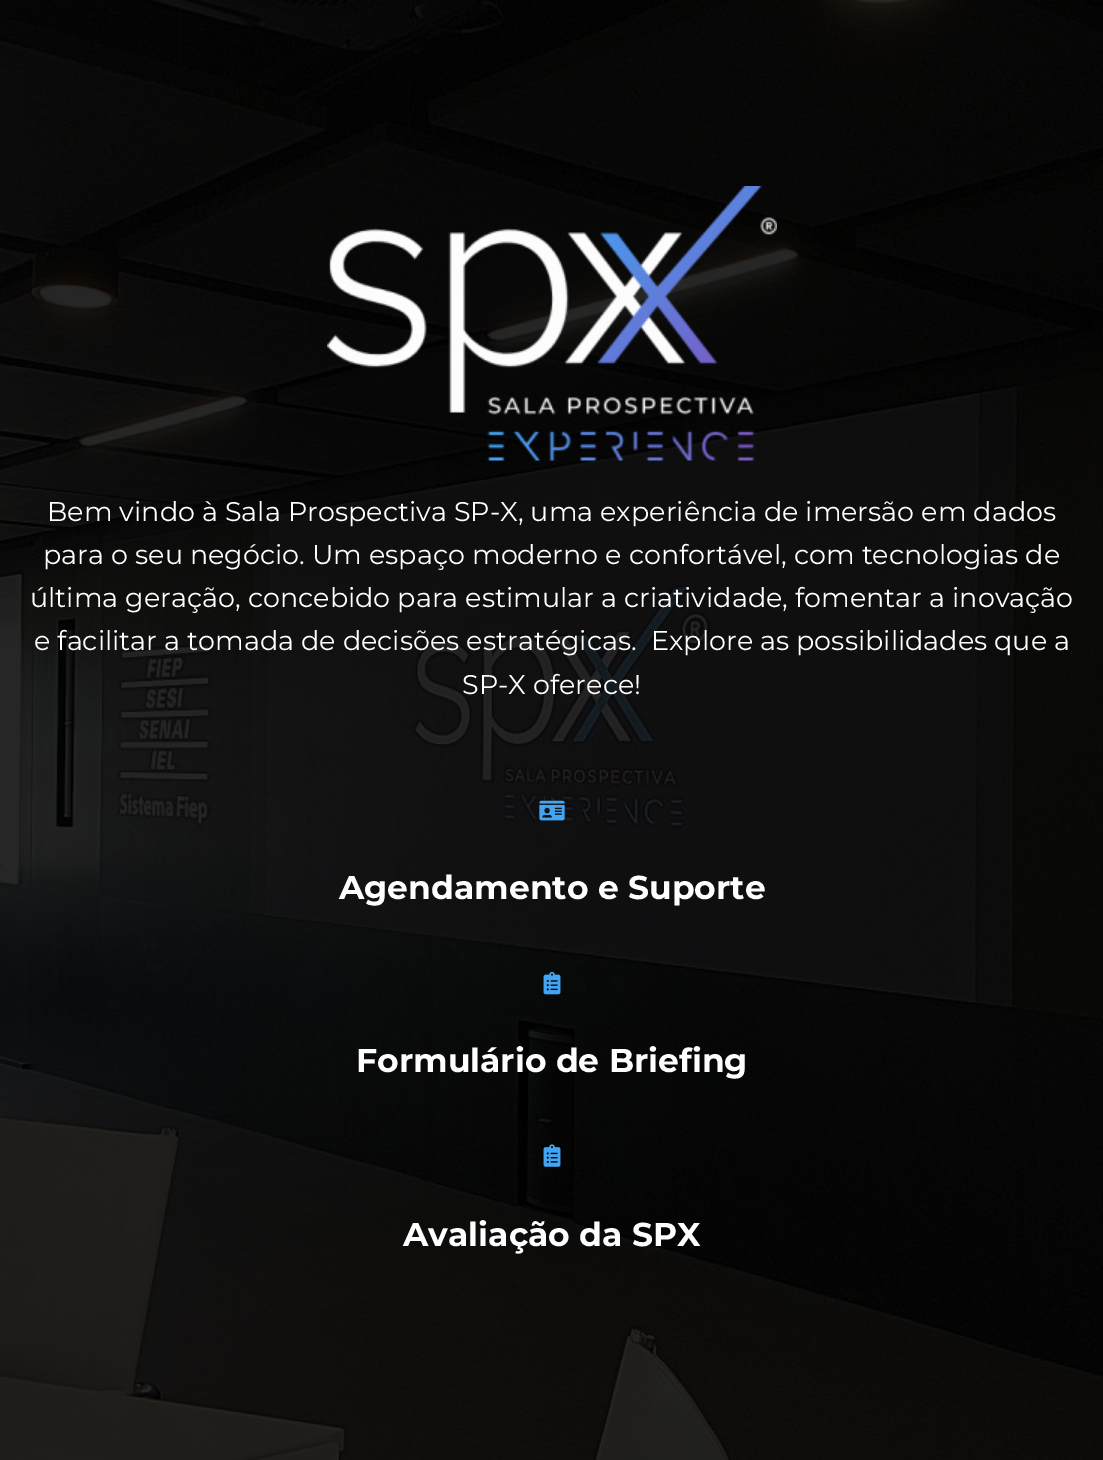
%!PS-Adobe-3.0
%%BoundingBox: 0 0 1103 1460
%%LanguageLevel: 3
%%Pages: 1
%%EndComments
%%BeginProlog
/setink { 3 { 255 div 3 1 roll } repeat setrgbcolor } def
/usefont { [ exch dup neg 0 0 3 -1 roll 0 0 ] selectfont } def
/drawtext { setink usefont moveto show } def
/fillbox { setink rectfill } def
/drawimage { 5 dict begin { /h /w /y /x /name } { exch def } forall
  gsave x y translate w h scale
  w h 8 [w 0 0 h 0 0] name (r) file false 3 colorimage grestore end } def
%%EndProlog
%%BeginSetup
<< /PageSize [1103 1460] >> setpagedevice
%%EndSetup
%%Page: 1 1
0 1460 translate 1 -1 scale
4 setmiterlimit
0 0 1103 1460 255 255 255 fillbox
(assets/img1.rgb) 0 0 1103 1460 drawimage
(assets/img2.rgb) 327 186 450 275 drawimage
(Bem vindo à Sala Prospectiva SP-X, uma experiência de imersão em dados) 47 521 /Montserrat-Regular 27 255 255 255 drawtext
(para o seu negócio. Um espaço moderno e confortável, com tecnologias de) 43 564 /Montserrat-Regular 27 255 255 255 drawtext
(última geração, concebido para estimular a criatividade, fomentar a inovação) 30 607 /Montserrat-Regular 27 255 255 255 drawtext
(e facilitar a tomada de decisões estratégicas.  Explore as possibilidades que a) 34 650 /Montserrat-Regular 27 255 255 255 drawtext
(SP-X oferece!) 462 694 /Montserrat-Regular 27 255 255 255 drawtext
(assets/img3.rgb) 539 800 26 21 drawimage
(Agendamento e Suporte) 339 899 /Montserrat-Bold 33 255 255 255 drawtext
(assets/img4.rgb) 543 971 18 24 drawimage
(Formulário de Briefing) 356 1072 /Montserrat-Bold 33 255 255 255 drawtext
(assets/img5.rgb) 543 1144 18 23 drawimage
(Avaliação da SPX) 403 1246 /Montserrat-Bold 33 255 255 255 drawtext
showpage
%%EOF
